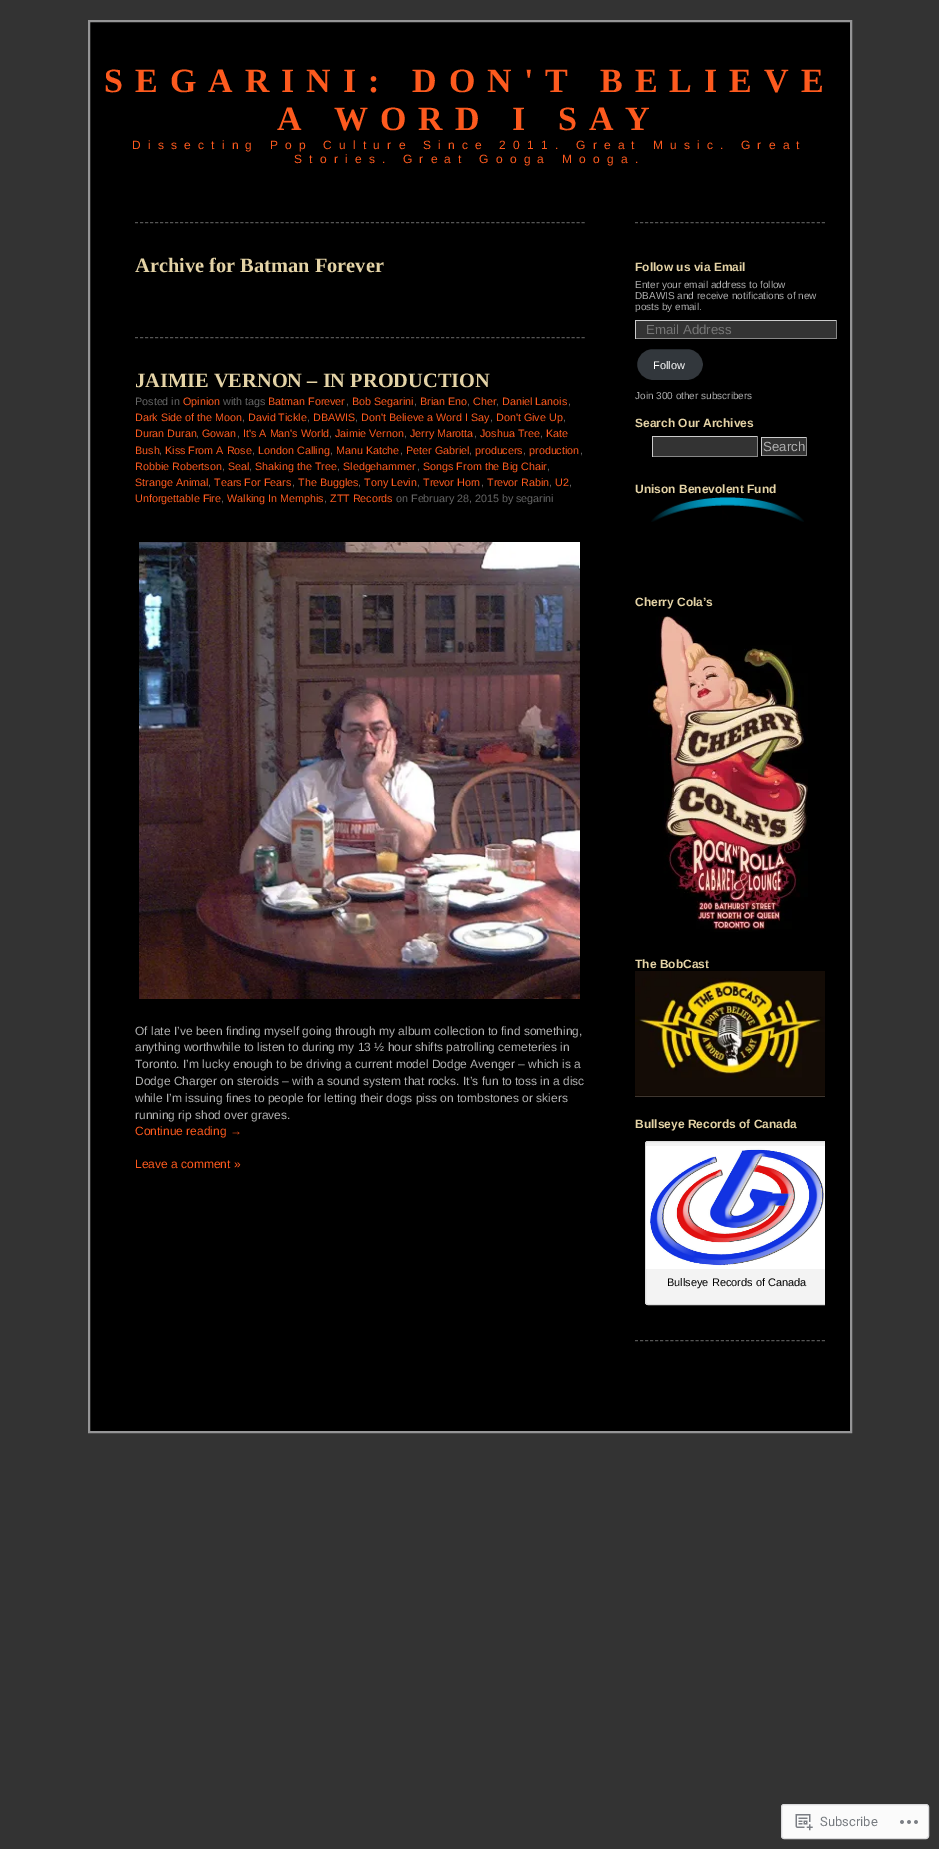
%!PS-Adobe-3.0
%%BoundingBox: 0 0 939 1849
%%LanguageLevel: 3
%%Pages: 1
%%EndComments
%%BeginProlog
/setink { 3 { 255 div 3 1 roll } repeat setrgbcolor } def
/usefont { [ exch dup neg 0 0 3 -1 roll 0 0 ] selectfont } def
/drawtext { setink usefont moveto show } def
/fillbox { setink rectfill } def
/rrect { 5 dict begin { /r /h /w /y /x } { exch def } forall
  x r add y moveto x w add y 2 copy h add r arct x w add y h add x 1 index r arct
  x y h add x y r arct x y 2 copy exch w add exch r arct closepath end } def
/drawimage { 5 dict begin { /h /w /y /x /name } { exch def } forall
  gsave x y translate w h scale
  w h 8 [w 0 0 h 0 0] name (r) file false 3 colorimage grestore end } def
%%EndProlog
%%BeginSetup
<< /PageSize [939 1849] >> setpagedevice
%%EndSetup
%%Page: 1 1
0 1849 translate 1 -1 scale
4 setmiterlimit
0 0 939 1849 51 51 51 fillbox
0 0 0 setink
89 21 moveto 851 21 lineto 851 1432 lineto 89 1432 lineto closepath gsave fill grestore
149 149 150 setink
2 setlinewidth
stroke
/LiberationSerif-Bold 34 usefont
253 90 30 setink
104 92 moveto 12 0 (SEGARINI: DON'T BELIEVE) ashow
277 130 moveto 12 0 (A WORD I SAY) ashow
/LiberationSans-Regular 12 usefont
132 149 moveto 7.2 0 (Dissecting Pop Culture Since 2011. Great Music. Great) ashow
294 163 moveto 7.2 0 (Stories. Great Googa Mooga.) ashow
85 85 85 setink
1 setlinewidth
[3 2.02] 0 setdash
135 222.5 moveto 585 222.5 lineto stroke
(Archive for Batman Forever) 135 272 /LiberationSerif-Bold 20.4 228 211 166 drawtext
85 85 85 setink
135 337.5 moveto 585 337.5 lineto stroke
(JAIMIE VERNON – IN PRODUCTION) 135 387 /LiberationSerif-Bold 20.4 228 211 166 drawtext
(Posted in) 135 405 /LiberationSans-Regular 10.75 102 102 102 drawtext
(Opinion) 183 405 /LiberationSans-Regular 10.75 253 90 30 drawtext
(with tags) 223 405 /LiberationSans-Regular 10.75 102 102 102 drawtext
(Batman Forever) 268 405 /LiberationSans-Regular 10.75 253 90 30 drawtext
(,) 346 405 /LiberationSans-Regular 10.75 102 102 102 drawtext
(Bob Segarini) 352 405 /LiberationSans-Regular 10.75 253 90 30 drawtext
(,) 414 405 /LiberationSans-Regular 10.75 102 102 102 drawtext
(Brian Eno) 420 405 /LiberationSans-Regular 10.75 253 90 30 drawtext
(,) 467 405 /LiberationSans-Regular 10.75 102 102 102 drawtext
(Cher) 473 405 /LiberationSans-Regular 10.75 253 90 30 drawtext
(,) 496 405 /LiberationSans-Regular 10.75 102 102 102 drawtext
(Daniel Lanois) 502 405 /LiberationSans-Regular 10.75 253 90 30 drawtext
(,) 568 405 /LiberationSans-Regular 10.75 102 102 102 drawtext
(Dark Side of the Moon) 135 421 /LiberationSans-Regular 10.75 253 90 30 drawtext
(,) 242 421 /LiberationSans-Regular 10.75 102 102 102 drawtext
(David Tickle) 248 421 /LiberationSans-Regular 10.75 253 90 30 drawtext
(,) 307 421 /LiberationSans-Regular 10.75 102 102 102 drawtext
(DBAWIS) 313 421 /LiberationSans-Regular 10.75 253 90 30 drawtext
(,) 355 421 /LiberationSans-Regular 10.75 102 102 102 drawtext
(Don't Believe a Word I Say) 361 421 /LiberationSans-Regular 10.75 253 90 30 drawtext
(,) 490 421 /LiberationSans-Regular 10.75 102 102 102 drawtext
(Don't Give Up) 496 421 /LiberationSans-Regular 10.75 253 90 30 drawtext
(,) 563 421 /LiberationSans-Regular 10.75 102 102 102 drawtext
(Duran Duran) 135 437 /LiberationSans-Regular 10.75 253 90 30 drawtext
(,) 196 437 /LiberationSans-Regular 10.75 102 102 102 drawtext
(Gowan) 202 437 /LiberationSans-Regular 10.75 253 90 30 drawtext
(,) 237 437 /LiberationSans-Regular 10.75 102 102 102 drawtext
(It's A Man's World) 243 437 /LiberationSans-Regular 10.75 253 90 30 drawtext
(,) 329 437 /LiberationSans-Regular 10.75 102 102 102 drawtext
(Jaimie Vernon) 335 437 /LiberationSans-Regular 10.75 253 90 30 drawtext
(,) 404 437 /LiberationSans-Regular 10.75 102 102 102 drawtext
(Jerry Marotta) 410 437 /LiberationSans-Regular 10.75 253 90 30 drawtext
(,) 474 437 /LiberationSans-Regular 10.75 102 102 102 drawtext
(Joshua Tree) 480 437 /LiberationSans-Regular 10.75 253 90 30 drawtext
(,) 540 437 /LiberationSans-Regular 10.75 102 102 102 drawtext
(Kate) 546 437 /LiberationSans-Regular 10.75 253 90 30 drawtext
(Bush) 135 454 /LiberationSans-Regular 10.75 253 90 30 drawtext
(,) 159 454 /LiberationSans-Regular 10.75 102 102 102 drawtext
(Kiss From A Rose) 165 454 /LiberationSans-Regular 10.75 253 90 30 drawtext
(,) 252 454 /LiberationSans-Regular 10.75 102 102 102 drawtext
(London Calling) 258 454 /LiberationSans-Regular 10.75 253 90 30 drawtext
(,) 330 454 /LiberationSans-Regular 10.75 102 102 102 drawtext
(Manu Katche) 336 454 /LiberationSans-Regular 10.75 253 90 30 drawtext
(,) 400 454 /LiberationSans-Regular 10.75 102 102 102 drawtext
(Peter Gabriel) 406 454 /LiberationSans-Regular 10.75 253 90 30 drawtext
(,) 469 454 /LiberationSans-Regular 10.75 102 102 102 drawtext
(producers) 475 454 /LiberationSans-Regular 10.75 253 90 30 drawtext
(,) 523 454 /LiberationSans-Regular 10.75 102 102 102 drawtext
(production) 529 454 /LiberationSans-Regular 10.75 253 90 30 drawtext
(,) 580 454 /LiberationSans-Regular 10.75 102 102 102 drawtext
(Robbie Robertson) 135 470 /LiberationSans-Regular 10.75 253 90 30 drawtext
(,) 222 470 /LiberationSans-Regular 10.75 102 102 102 drawtext
(Seal) 228 470 /LiberationSans-Regular 10.75 253 90 30 drawtext
(,) 249 470 /LiberationSans-Regular 10.75 102 102 102 drawtext
(Shaking the Tree) 255 470 /LiberationSans-Regular 10.75 253 90 30 drawtext
(,) 337 470 /LiberationSans-Regular 10.75 102 102 102 drawtext
(Sledgehammer) 343 470 /LiberationSans-Regular 10.75 253 90 30 drawtext
(,) 417 470 /LiberationSans-Regular 10.75 102 102 102 drawtext
(Songs From the Big Chair) 423 470 /LiberationSans-Regular 10.75 253 90 30 drawtext
(,) 547 470 /LiberationSans-Regular 10.75 102 102 102 drawtext
(Strange Animal) 135 486 /LiberationSans-Regular 10.75 253 90 30 drawtext
(,) 208 486 /LiberationSans-Regular 10.75 102 102 102 drawtext
(Tears For Fears) 214 486 /LiberationSans-Regular 10.75 253 90 30 drawtext
(,) 292 486 /LiberationSans-Regular 10.75 102 102 102 drawtext
(The Buggles) 298 486 /LiberationSans-Regular 10.75 253 90 30 drawtext
(,) 358 486 /LiberationSans-Regular 10.75 102 102 102 drawtext
(Tony Levin) 364 486 /LiberationSans-Regular 10.75 253 90 30 drawtext
(,) 417 486 /LiberationSans-Regular 10.75 102 102 102 drawtext
(Trevor Horn) 423 486 /LiberationSans-Regular 10.75 253 90 30 drawtext
(,) 481 486 /LiberationSans-Regular 10.75 102 102 102 drawtext
(Trevor Rabin) 487 486 /LiberationSans-Regular 10.75 253 90 30 drawtext
(,) 549 486 /LiberationSans-Regular 10.75 102 102 102 drawtext
(U2) 555 486 /LiberationSans-Regular 10.75 253 90 30 drawtext
(,) 569 486 /LiberationSans-Regular 10.75 102 102 102 drawtext
(Unforgettable Fire) 135 502 /LiberationSans-Regular 10.75 253 90 30 drawtext
(,) 221 502 /LiberationSans-Regular 10.75 102 102 102 drawtext
(Walking In Memphis) 227 502 /LiberationSans-Regular 10.75 253 90 30 drawtext
(,) 324 502 /LiberationSans-Regular 10.75 102 102 102 drawtext
(ZTT Records) 330 502 /LiberationSans-Regular 10.75 253 90 30 drawtext
(on February 28, 2015 by segarini) 396 502 /LiberationSans-Regular 10.75 102 102 102 drawtext
(assets/img1.rgb) 139 542 441 457 drawimage
(Of late I’ve been finding myself going through my album collection to find something,) 135 1035 /LiberationSans-Regular 12 176 176 176 drawtext
(anything worthwhile to listen to during my 13 ½ hour shifts patrolling cemeteries in) 135 1051 /LiberationSans-Regular 12 176 176 176 drawtext
(Toronto. I’m lucky enough to be driving a current model Dodge Avenger – which is a) 135 1068 /LiberationSans-Regular 12 176 176 176 drawtext
(Dodge Charger on steroids – with a sound system that rocks. It’s fun to toss in a disc) 135 1085 /LiberationSans-Regular 12 176 176 176 drawtext
(while I’m issuing fines to people for letting their dogs piss on tombstones or skiers) 135 1102 /LiberationSans-Regular 12 176 176 176 drawtext
(running rip shod over graves.) 135 1119 /LiberationSans-Regular 12 176 176 176 drawtext
(Continue reading →) 135 1135 /LiberationSans-Regular 12 253 90 30 drawtext
(Leave a comment ») 135 1168 /LiberationSans-Regular 12 253 90 30 drawtext
85 85 85 setink
[3 2.05] 0 setdash
635 222.5 moveto 825 222.5 lineto stroke
635 1340.5 moveto 825 1340.5 lineto stroke
(Follow us via Email) 635 271 /LiberationSans-Bold 12 228 211 166 drawtext
(Enter your email address to follow) 635 288 /LiberationSans-Regular 10 176 176 176 drawtext
(DBAWIS and receive notifications of new) 635 299 /LiberationSans-Regular 10 176 176 176 drawtext
(posts by email.) 635 310 /LiberationSans-Regular 10 176 176 176 drawtext
636 321 200 17 51 51 51 fillbox
635 320 202 1 204 204 204 fillbox
836 320 1 19 136 136 136 fillbox
635 338 202 1 136 136 136 fillbox
635 320 1 19 204 204 204 fillbox
(Email Address) 646 334 /LiberationSans-Regular 13.25 117 117 117 drawtext
50 55 60 setink
636 348 68 33 16.5 rrect gsave fill grestore
0 0 0 setink
2 setlinewidth
[] 0 setdash
stroke
(Follow) 653 369 /LiberationSans-Regular 11 255 255 255 drawtext
(Join 300 other subscribers) 635 399 /LiberationSans-Regular 10 176 176 176 drawtext
(Search Our Archives) 635 427 /LiberationSans-Bold 12 228 211 166 drawtext
653 437 104 19 51 51 51 fillbox
652 436 106 1 204 204 204 fillbox
757 436 1 21 136 136 136 fillbox
652 456 106 1 136 136 136 fillbox
652 436 1 21 204 204 204 fillbox
762 438 44 17 51 51 51 fillbox
761 437 46 1 204 204 204 fillbox
806 437 1 19 136 136 136 fillbox
761 455 46 1 136 136 136 fillbox
761 437 1 19 204 204 204 fillbox
(Search) 763 451 /LiberationSans-Regular 13.25 176 176 176 drawtext
(Unison Benevolent Fund) 635 493 /LiberationSans-Bold 12 228 211 166 drawtext
(assets/img2.rgb) 651 497 153 25 drawimage
(Cherry Cola’s) 635 606 /LiberationSans-Bold 12 228 211 166 drawtext
(assets/img3.rgb) 648 616 160 316 drawimage
(The BobCast) 635 968 /LiberationSans-Bold 12 228 211 166 drawtext
(assets/img4.rgb) 635 971 190 126 drawimage
(Bullseye Records of Canada) 635 1128 /LiberationSans-Bold 12 228 211 166 drawtext
243 243 243 setink
648 1141 moveto 825 1141 lineto 825 1305 lineto 648 1305 lineto 646.5 1305 645 1303.5 645 1302 curveto 645 1144 lineto 645 1142.5 646.5 1141 648 1141 curveto closepath fill
gsave
635 1112 190 203 rectclip
221 221 221 setink
1 setlinewidth
645.5 1141.5 183 163 2.5 rrect stroke
grestore
(assets/img5.rgb) 646 1146 179 123 drawimage
(Bullseye Records of Canada) 667 1286 /LiberationSans-Regular 11 0 0 0 drawtext
251 251 251 setink
781.5 1804.5 147 34 2.5 rrect gsave fill grestore
217 217 219 setink
1 setlinewidth
stroke
(assets/img6.rgb) 795 1814 18 17 drawimage
(Subscribe) 820 1826 /Roboto-Regular 13 119 123 128 drawtext
(assets/img7.rgb) 900 1820 18 4 drawimage
showpage
%%EOF
